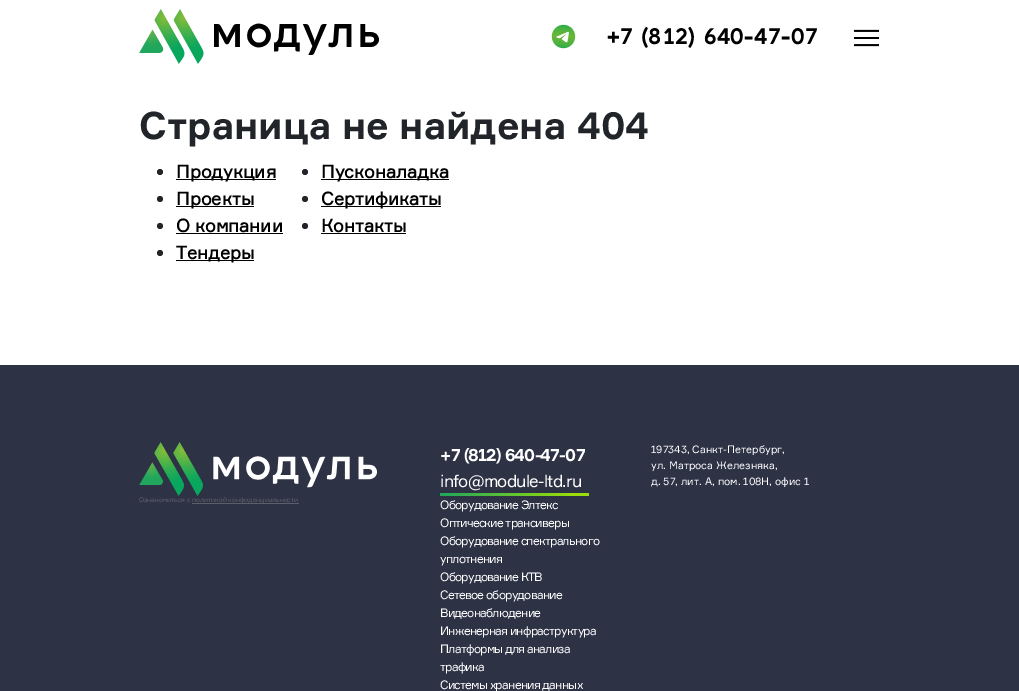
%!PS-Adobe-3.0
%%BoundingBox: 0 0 1019 691
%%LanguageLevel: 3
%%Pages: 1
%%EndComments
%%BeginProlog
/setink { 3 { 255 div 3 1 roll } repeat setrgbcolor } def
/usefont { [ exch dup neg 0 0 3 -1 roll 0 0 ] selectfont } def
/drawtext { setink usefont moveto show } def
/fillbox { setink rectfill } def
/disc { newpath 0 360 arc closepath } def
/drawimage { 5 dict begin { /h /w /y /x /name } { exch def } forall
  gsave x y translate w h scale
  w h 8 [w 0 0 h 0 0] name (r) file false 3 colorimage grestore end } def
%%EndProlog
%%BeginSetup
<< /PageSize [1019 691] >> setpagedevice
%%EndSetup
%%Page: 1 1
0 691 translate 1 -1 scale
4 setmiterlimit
0 0 1019 691 255 255 255 fillbox
(assets/img1.rgb) 139 9 240 55 drawimage
(assets/img2.rgb) 551 24 25 25 drawimage
/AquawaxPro-Bold 22 usefont
0 0 0 setink
607 44 moveto 0.5 0 (+7 \(812\) 640-47-07) ashow
(assets/img3.rgb) 854 29 25 18 drawimage
(Страница не найдена 404) 139 139 /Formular-Bold 38 33 37 41 drawtext
160 172 3 disc fill
176 179 100 1 0 0 0 fillbox
(Продукция) 176 178 /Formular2-Bold 18 0 0 0 drawtext
33 37 41 setink
160 199 3 disc fill
176 206 78 1 0 0 0 fillbox
(Проекты) 176 205 /Formular2-Bold 18 0 0 0 drawtext
33 37 41 setink
160 226 3 disc fill
(О компании) 176 232 /Formular2-Bold 18 0 0 0 drawtext
176 233 107 1 0 0 0 fillbox
33 37 41 setink
160 253 3 disc fill
176 260 78 1 0 0 0 fillbox
(Тендеры) 176 259 /Formular2-Bold 18 0 0 0 drawtext
33 37 41 setink
305 172 3 disc fill
321 179 128 1 0 0 0 fillbox
(Пусконаладка) 321 178 /Formular2-Bold 18 0 0 0 drawtext
33 37 41 setink
305 199 3 disc fill
321 206 120 1 0 0 0 fillbox
(Сертификаты) 321 205 /Formular2-Bold 18 0 0 0 drawtext
33 37 41 setink
305 226 3 disc fill
(Контакты) 321 232 /Formular2-Bold 18 0 0 0 drawtext
321 233 85 1 0 0 0 fillbox
0 365 1019 326 45 50 69 fillbox
(assets/img4.rgb) 139 442 238 54 drawimage
(Ознакомиться с) 139 502 /Formular-Regular 6.5 92 95 107 drawtext
192 503 107 1 92 95 107 fillbox
(политикой конфиденциальности) 192 502 /Formular-Regular 6.5 92 95 107 drawtext
/Formular-Bold 17 usefont
255 255 255 setink
440 461 moveto -0.8 0 (+7 \(812\) 640-47-07) ashow
/Formular-Regular 17 usefont
440 487 moveto -0.8 0 (info@module-ltd.ru) ashow
gsave 440 493 moveto 589 493 lineto 589 496 lineto 440 496 lineto closepath clip newpath
<< /ShadingType 2 /ColorSpace /DeviceRGB /Coords [440 496 589 493] /Extend [true true] /Function << /FunctionType 3 /Domain [0 1] /Functions [<< /FunctionType 2 /Domain [0 1] /C0 [0.125 0.651 0.365] /C1 [0.604 0.867 0.043] /N 1 >> << /FunctionType 2 /Domain [0 1] /C0 [0.604 0.867 0.043] /C1 [0.604 0.867 0.043] /N 1 >>] /Bounds [0.89] /Encode [0 1 0 1] >> >> shfill grestore
/Formular-Regular 12 usefont
440 509 moveto -0.8 0 (Оборудование Элтекс) ashow
440 527 moveto -0.8 0 (Оптические трансиверы) ashow
440 545 moveto -0.8 0 (Оборудование спектрального) ashow
440 563 moveto -0.8 0 (уплотнения) ashow
440 581 moveto -0.8 0 (Оборудование КТВ) ashow
440 599 moveto -0.8 0 (Сетевое оборудование) ashow
440 617 moveto -0.8 0 (Видеонаблюдение) ashow
440 635 moveto -0.8 0 (Инженерная инфраструктура) ashow
440 653 moveto -0.8 0 (Платформы для анализа) ashow
440 671 moveto -0.8 0 (трафика) ashow
440 689 moveto -0.8 0 (Системы хранения данных) ashow
(197343, Санкт-Петербург,) 651 453 /Formular-Regular 10.5 255 255 255 drawtext
(ул. Матроса Железняка,) 651 469 /Formular-Regular 10.5 255 255 255 drawtext
(д. 57, лит. А, пом. 108Н, офис 1) 651 485 /Formular-Regular 10.5 255 255 255 drawtext
showpage
%%EOF
